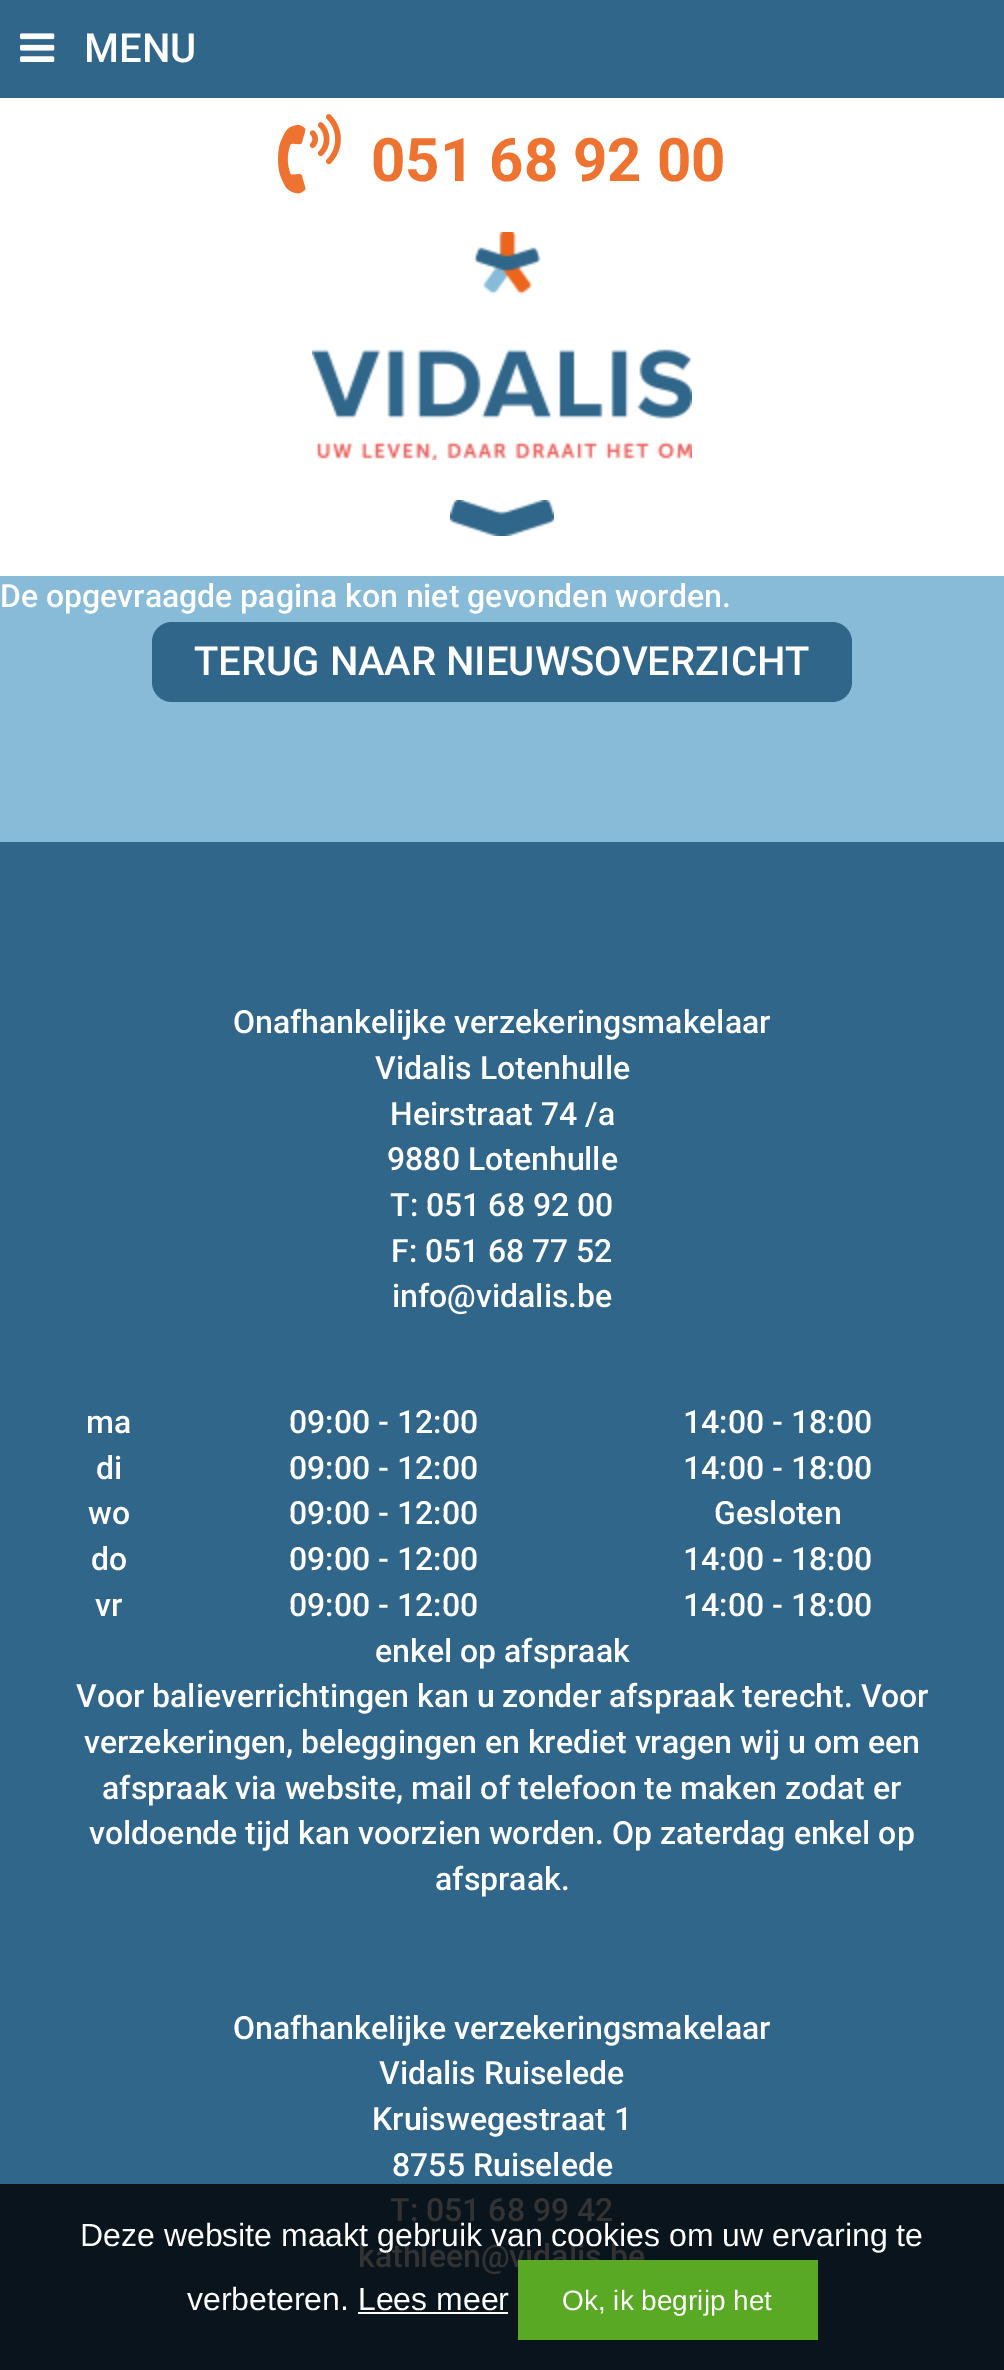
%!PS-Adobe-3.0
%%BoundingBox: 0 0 1004 2370
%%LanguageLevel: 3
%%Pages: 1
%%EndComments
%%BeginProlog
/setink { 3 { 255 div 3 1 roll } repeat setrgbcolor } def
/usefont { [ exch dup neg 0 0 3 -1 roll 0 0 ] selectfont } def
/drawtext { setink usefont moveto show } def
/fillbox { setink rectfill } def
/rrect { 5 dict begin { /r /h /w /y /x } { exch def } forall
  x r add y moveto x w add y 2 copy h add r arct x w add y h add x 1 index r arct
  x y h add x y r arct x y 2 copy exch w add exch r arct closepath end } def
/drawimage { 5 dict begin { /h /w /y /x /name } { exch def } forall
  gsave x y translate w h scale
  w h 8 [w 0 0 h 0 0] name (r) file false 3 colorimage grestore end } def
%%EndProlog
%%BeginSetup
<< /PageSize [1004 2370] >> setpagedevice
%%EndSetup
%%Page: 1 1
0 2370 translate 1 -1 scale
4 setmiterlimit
0 0 1004 2370 255 255 255 fillbox
0 0 1004 98 49 102 139 fillbox
(assets/img1.rgb) 20 33 35 29 drawimage
(MENU) 84 62 /Roboto-Medium 40 255 255 255 drawtext
(assets/img2.rgb) 278 114 63 80 drawimage
(051 68 92 00) 371 181 /Roboto-Bold 60 238 115 48 drawtext
(assets/img3.rgb) 312 232 380 228 drawimage
(assets/img4.rgb) 450 500 104 36 drawimage
0 576 1004 266 135 187 216 fillbox
(De opgevraagde pagina kon niet gevonden worden.) 0 607 /Roboto-Medium 32 255 255 255 drawtext
49 102 139 setink
152 622 700 80 20 rrect fill
(TERUG NAAR NIEUWSOVERZICHT) 194 675 /Roboto-Medium 40 255 255 255 drawtext
0 842 1004 1342 49 102 139 fillbox
0 2184 1004 186 10 20 28 fillbox
(Onafhankelijke verzekeringsmakelaar) 233 1033 /Roboto-Medium 32 255 255 255 drawtext
(Vidalis Lotenhulle) 375 1079 /Roboto-Medium 32 255 255 255 drawtext
(Heirstraat 74 /a) 390 1125 /Roboto-Medium 32 255 255 255 drawtext
(9880 Lotenhulle) 387 1170 /Roboto-Medium 32 255 255 255 drawtext
(T: 051 68 92 00) 390 1216 /Roboto-Medium 32 255 255 255 drawtext
(F: 051 68 77 52) 391 1262 /Roboto-Medium 32 255 255 255 drawtext
(info@vidalis.be) 392 1307 /Roboto-Medium 32 255 255 255 drawtext
(ma) 86 1433 /Roboto-Medium 32 255 255 255 drawtext
(09:00 - 12:00) 289 1433 /Roboto-Medium 32 255 255 255 drawtext
(14:00 - 18:00) 683 1433 /Roboto-Medium 32 255 255 255 drawtext
(di) 96 1479 /Roboto-Medium 32 255 255 255 drawtext
(09:00 - 12:00) 289 1479 /Roboto-Medium 32 255 255 255 drawtext
(14:00 - 18:00) 683 1479 /Roboto-Medium 32 255 255 255 drawtext
(wo) 88 1524 /Roboto-Medium 32 255 255 255 drawtext
(09:00 - 12:00) 289 1524 /Roboto-Medium 32 255 255 255 drawtext
(Gesloten) 714 1524 /Roboto-Medium 32 255 255 255 drawtext
(do) 91 1570 /Roboto-Medium 32 255 255 255 drawtext
(09:00 - 12:00) 289 1570 /Roboto-Medium 32 255 255 255 drawtext
(14:00 - 18:00) 683 1570 /Roboto-Medium 32 255 255 255 drawtext
(vr) 95 1616 /Roboto-Medium 32 255 255 255 drawtext
(09:00 - 12:00) 289 1616 /Roboto-Medium 32 255 255 255 drawtext
(14:00 - 18:00) 683 1616 /Roboto-Medium 32 255 255 255 drawtext
(enkel op afspraak) 375 1662 /Roboto-Medium 32 255 255 255 drawtext
(Voor balieverrichtingen kan u zonder afspraak terecht. Voor) 76 1707 /Roboto-Medium 32 255 255 255 drawtext
(verzekeringen, beleggingen en krediet vragen wij u om een) 84 1753 /Roboto-Medium 32 255 255 255 drawtext
(afspraak via website, mail of telefoon te maken zodat er) 102 1799 /Roboto-Medium 32 255 255 255 drawtext
(voldoende tijd kan voorzien worden. Op zaterdag enkel op) 89 1844 /Roboto-Medium 32 255 255 255 drawtext
(afspraak.) 435 1890 /Roboto-Medium 32 255 255 255 drawtext
(Onafhankelijke verzekeringsmakelaar) 233 2039 /Roboto-Medium 32 255 255 255 drawtext
(Vidalis Ruiselede) 379 2084 /Roboto-Medium 32 255 255 255 drawtext
(Kruiswegestraat 1) 372 2130 /Roboto-Medium 32 255 255 255 drawtext
(8755 Ruiselede) 392 2176 /Roboto-Medium 32 255 255 255 drawtext
(T: 051 68 99 42) 390 2221 /Roboto-Medium 32 51 51 51 drawtext
(kathleen@vidalis.be) 358 2267 /Roboto-Medium 32 51 51 51 drawtext
(Deze website maakt gebruik van cookies om uw ervaring te) 80 2246 /LiberationSans-Regular 32 255 255 255 drawtext
(verbeteren. Lees meer) 187 2310 /LiberationSans-Regular 32 255 255 255 drawtext
518 2260 300 80 89 169 36 fillbox
(Ok, ik begrijp het) 562 2310 /LiberationSans-Regular 28 255 255 255 drawtext
358 2312 150 2 255 255 255 fillbox
showpage
%%EOF
